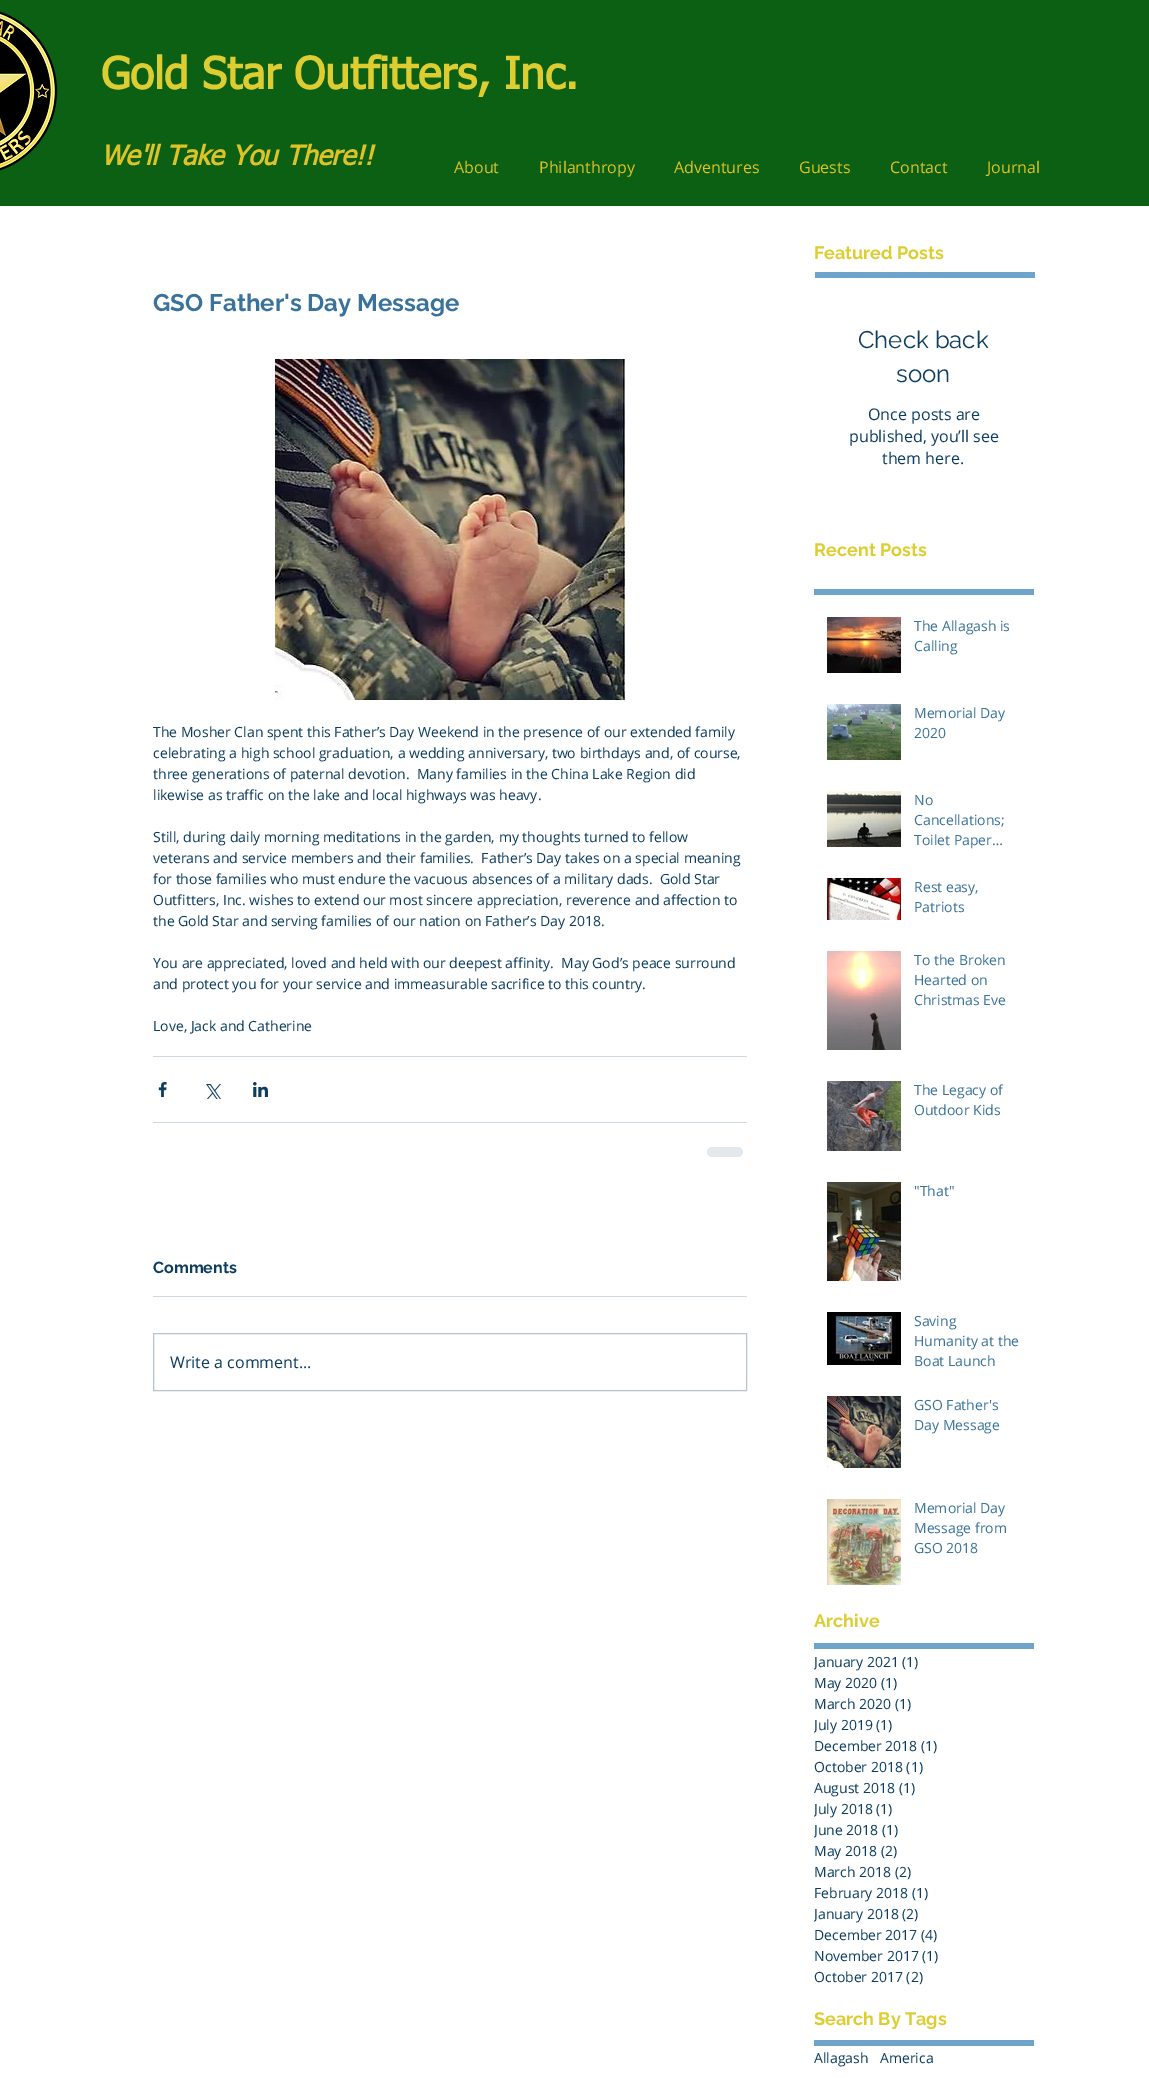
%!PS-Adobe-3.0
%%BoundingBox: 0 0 1149 2078
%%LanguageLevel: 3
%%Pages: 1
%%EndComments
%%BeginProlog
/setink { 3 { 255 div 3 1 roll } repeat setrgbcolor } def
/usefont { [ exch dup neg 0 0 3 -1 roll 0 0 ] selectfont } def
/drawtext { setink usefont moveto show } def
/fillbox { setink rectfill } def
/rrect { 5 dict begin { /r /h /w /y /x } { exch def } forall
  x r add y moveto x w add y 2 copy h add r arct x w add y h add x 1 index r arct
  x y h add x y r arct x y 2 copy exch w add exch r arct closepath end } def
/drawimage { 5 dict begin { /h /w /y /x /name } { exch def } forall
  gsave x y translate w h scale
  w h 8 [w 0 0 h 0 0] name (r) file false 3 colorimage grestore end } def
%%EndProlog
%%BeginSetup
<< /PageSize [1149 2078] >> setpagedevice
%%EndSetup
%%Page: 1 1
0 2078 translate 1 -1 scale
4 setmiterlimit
0 0 1149 2078 255 255 255 fillbox
0 0 1149 206 12 96 20 fillbox
(assets/img1.rgb) 0 11 58 160 drawimage
(Gold Star Outfitters, Inc.) 101 89 /tahoma-Bold 44 222 205 49 drawtext
(We'll Take You There!!) 101 165 /tahoma-BoldItalic 27 222 195 40 drawtext
(About) 454 173 /OpenSans-Regular 16 222 195 40 drawtext
(Philanthropy) 539 173 /OpenSans-Regular 16 222 195 40 drawtext
(Adventures) 674 173 /OpenSans-Regular 16 222 195 40 drawtext
(Guests) 799 173 /OpenSans-Regular 16 222 195 40 drawtext
(Contact) 890 173 /OpenSans-Regular 16 222 195 40 drawtext
(Journal) 987 173 /OpenSans-Regular 16 222 195 40 drawtext
(Featured Posts) 814 259 /Raleway-Bold 18 222 205 49 drawtext
815 272 220 6 110 164 202 fillbox
(GSO Father's Day Message) 153 311 /Raleway-Bold 24 57 114 155 drawtext
(assets/img2.rgb) 275 359 350 341 drawimage
(The Mosher Clan spent this Father’s Day Weekend in the presence of our extended family) 153 737 /OpenSans-Regular 14 12 60 96 drawtext
(celebrating a high school graduation, a wedding anniversary, two birthdays and, of course,) 153 758 /OpenSans-Regular 14 12 60 96 drawtext
(three generations of paternal devotion.  Many families in the China Lake Region did) 153 779 /OpenSans-Regular 14 12 60 96 drawtext
(likewise as traffic on the lake and local highways was heavy.) 153 800 /OpenSans-Regular 14 12 60 96 drawtext
(Still, during daily morning meditations in the garden, my thoughts turned to fellow) 153 842 /OpenSans-Regular 14 12 60 96 drawtext
(veterans and service members and their families.  Father’s Day takes on a special meaning) 153 863 /OpenSans-Regular 14 12 60 96 drawtext
(for those families who must endure the vacuous absences of a military dads.  Gold Star) 153 884 /OpenSans-Regular 14 12 60 96 drawtext
(Outfitters, Inc. wishes to extend our most sincere appreciation, reverence and affection to) 153 905 /OpenSans-Regular 14 12 60 96 drawtext
(the Gold Star and serving families of our nation on Father’s Day 2018.) 153 926 /OpenSans-Regular 14 12 60 96 drawtext
(You are appreciated, loved and held with our deepest affinity.  May God’s peace surround) 153 968 /OpenSans-Regular 14 12 60 96 drawtext
(and protect you for your service and immeasurable sacrifice to this country.) 153 989 /OpenSans-Regular 14 12 60 96 drawtext
(Love, Jack and Catherine) 153 1031 /OpenSans-Regular 14 12 60 96 drawtext
153 1056 594 1 206 216 223 fillbox
(assets/img3.rgb) 158 1082 9 15 drawimage
(assets/img4.rgb) 206 1084 15 15 drawimage
(assets/img5.rgb) 253 1082 15 15 drawimage
153 1122 594 1 206 216 223 fillbox
226 232 236 setink
707 1147 36 10 5 rrect fill
(Comments) 153 1273 /Raleway-Bold 16 12 60 96 drawtext
153 1296 594 1 206 216 223 fillbox
182 197 207 setink
153.5 1333.5 593 57 rectstroke
(Write a comment...) 170 1368 /OpenSans-Regular 16 12 60 96 drawtext
(Check back) 858 348 /Raleway-Regular 24 12 60 96 drawtext
(soon) 896 382 /Raleway-Regular 24 12 60 96 drawtext
(Once posts are) 868 420 /OpenSans-Regular 16 12 60 96 drawtext
(published, you’ll see) 849 442 /OpenSans-Regular 16 12 60 96 drawtext
(them here.) 882 464 /OpenSans-Regular 16 12 60 96 drawtext
(Recent Posts) 814 556 /Raleway-Bold 18 222 205 49 drawtext
814 589 220 6 110 164 202 fillbox
(assets/img6.rgb) 827 617 74 56 drawimage
(The Allagash is) 914 631 /OpenSans-Regular 14 57 114 155 drawtext
(Calling) 914 651 /OpenSans-Regular 14 57 114 155 drawtext
(assets/img7.rgb) 827 704 74 56 drawimage
(Memorial Day) 914 718 /OpenSans-Regular 14 57 114 155 drawtext
(2020) 914 738 /OpenSans-Regular 14 57 114 155 drawtext
(assets/img8.rgb) 827 791 74 56 drawimage
(No) 914 805 /OpenSans-Regular 14 57 114 155 drawtext
(Cancellations;) 914 825 /OpenSans-Regular 14 57 114 155 drawtext
(Toilet Paper…) 914 845 /OpenSans-Regular 14 57 114 155 drawtext
(assets/img9.rgb) 827 878 74 42 drawimage
(Rest easy,) 914 892 /OpenSans-Regular 14 57 114 155 drawtext
(Patriots) 914 912 /OpenSans-Regular 14 57 114 155 drawtext
(assets/img10.rgb) 827 951 74 99 drawimage
(To the Broken) 914 965 /OpenSans-Regular 14 57 114 155 drawtext
(Hearted on) 914 985 /OpenSans-Regular 14 57 114 155 drawtext
(Christmas Eve) 914 1005 /OpenSans-Regular 14 57 114 155 drawtext
(assets/img11.rgb) 827 1081 74 70 drawimage
(The Legacy of) 914 1095 /OpenSans-Regular 14 57 114 155 drawtext
(Outdoor Kids) 914 1115 /OpenSans-Regular 14 57 114 155 drawtext
(assets/img12.rgb) 827 1182 74 99 drawimage
("That") 914 1196 /OpenSans-Regular 14 57 114 155 drawtext
(assets/img13.rgb) 827 1312 74 53 drawimage
(Saving) 914 1326 /OpenSans-Regular 14 57 114 155 drawtext
(Humanity at the) 914 1346 /OpenSans-Regular 14 57 114 155 drawtext
(Boat Launch) 914 1366 /OpenSans-Regular 14 57 114 155 drawtext
(assets/img14.rgb) 827 1396 74 72 drawimage
(GSO Father's) 914 1410 /OpenSans-Regular 14 57 114 155 drawtext
(Day Message) 914 1430 /OpenSans-Regular 14 57 114 155 drawtext
(assets/img15.rgb) 827 1499 74 86 drawimage
(Memorial Day) 914 1513 /OpenSans-Regular 14 57 114 155 drawtext
(Message from) 914 1533 /OpenSans-Regular 14 57 114 155 drawtext
(GSO 2018) 914 1553 /OpenSans-Regular 14 57 114 155 drawtext
(Archive) 814 1627 /Raleway-Bold 18 222 205 49 drawtext
814 1643 220 6 110 164 202 fillbox
gsave
814 1651 104 21 rectclip
(January 2021) 814 1667 /OpenSans-Regular 14 12 60 96 drawtext
grestore
(\(1\)) 902 1667 /OpenSans-Regular 14 12 60 96 drawtext
(May 2020 \(1\)) 814 1688 /OpenSans-Regular 14 12 60 96 drawtext
(March 2020 \(1\)) 814 1709 /OpenSans-Regular 14 12 60 96 drawtext
gsave
814 1714 78 21 rectclip
(July 2019) 814 1730 /OpenSans-Regular 14 12 60 96 drawtext
grestore
(\(1\)) 876 1730 /OpenSans-Regular 14 12 60 96 drawtext
(December 2018 \(1\)) 814 1751 /OpenSans-Regular 14 12 60 96 drawtext
(October 2018 \(1\)) 814 1772 /OpenSans-Regular 14 12 60 96 drawtext
(August 2018 \(1\)) 814 1793 /OpenSans-Regular 14 12 60 96 drawtext
gsave
814 1798 78 21 rectclip
(July 2018) 814 1814 /OpenSans-Regular 14 12 60 96 drawtext
grestore
(\(1\)) 876 1814 /OpenSans-Regular 14 12 60 96 drawtext
gsave
814 1819 84 21 rectclip
(June 2018) 814 1835 /OpenSans-Regular 14 12 60 96 drawtext
grestore
(\(1\)) 882 1835 /OpenSans-Regular 14 12 60 96 drawtext
(May 2018 \(2\)) 814 1856 /OpenSans-Regular 14 12 60 96 drawtext
(March 2018 \(2\)) 814 1877 /OpenSans-Regular 14 12 60 96 drawtext
(February 2018 \(1\)) 814 1898 /OpenSans-Regular 14 12 60 96 drawtext
gsave
814 1903 104 21 rectclip
(January 2018) 814 1919 /OpenSans-Regular 14 12 60 96 drawtext
grestore
(\(2\)) 902 1919 /OpenSans-Regular 14 12 60 96 drawtext
(December 2017 \(4\)) 814 1940 /OpenSans-Regular 14 12 60 96 drawtext
(November 2017 \(1\)) 814 1961 /OpenSans-Regular 14 12 60 96 drawtext
(October 2017 \(2\)) 814 1982 /OpenSans-Regular 14 12 60 96 drawtext
(Search By Tags) 814 2025 /Raleway-Bold 18 222 205 49 drawtext
814 2040 220 6 110 164 202 fillbox
(Allagash) 814 2063 /OpenSans-Regular 14 12 60 96 drawtext
(America) 880 2063 /OpenSans-Regular 14 12 60 96 drawtext
showpage
%%EOF
